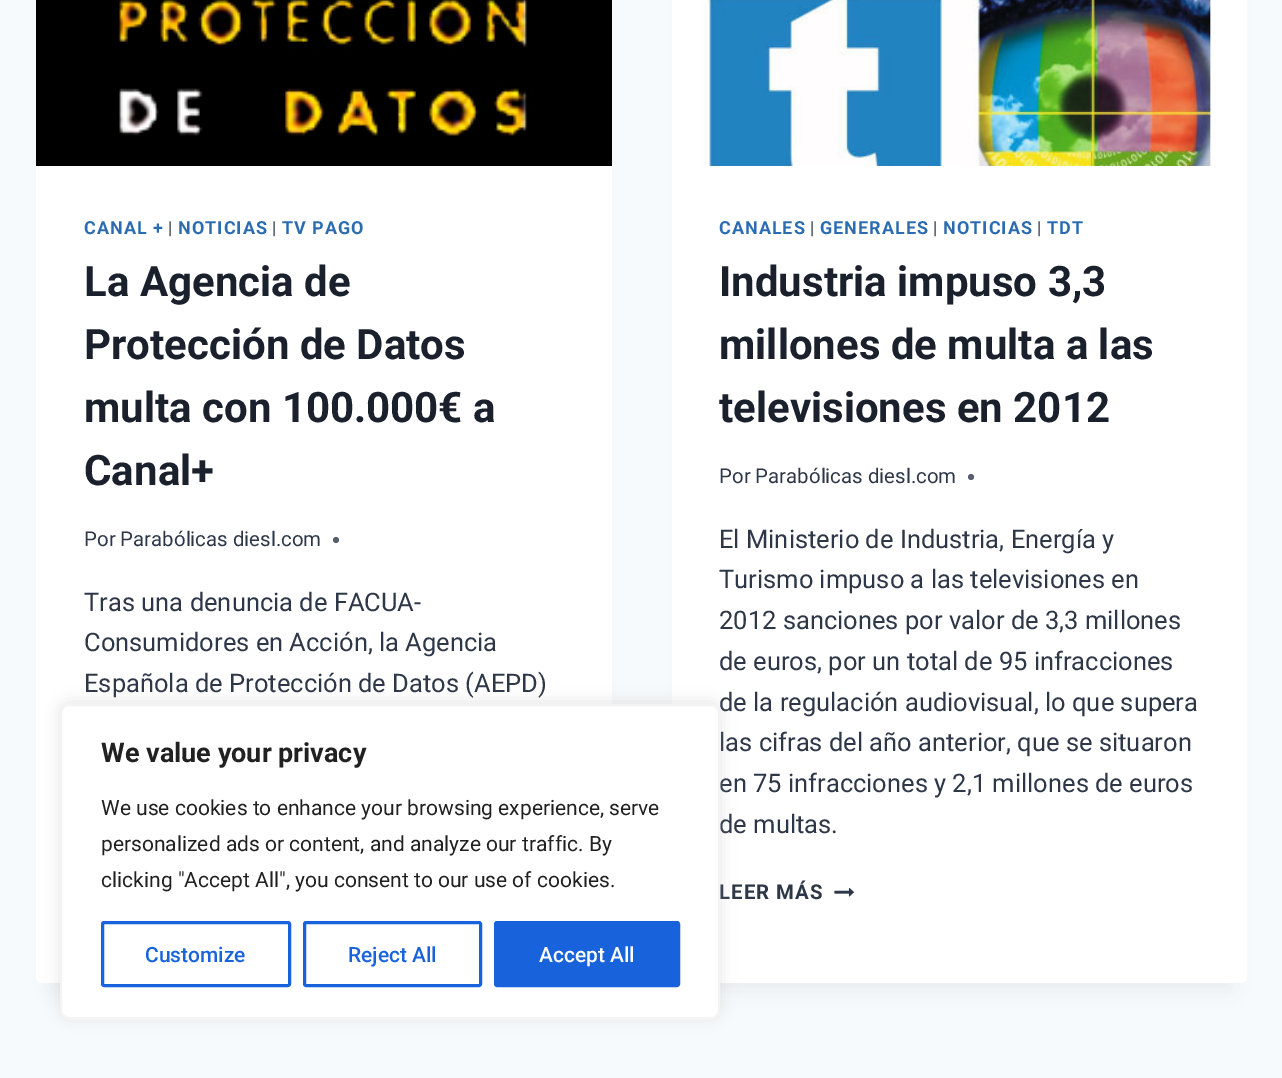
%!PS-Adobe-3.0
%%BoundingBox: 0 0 1282 1078
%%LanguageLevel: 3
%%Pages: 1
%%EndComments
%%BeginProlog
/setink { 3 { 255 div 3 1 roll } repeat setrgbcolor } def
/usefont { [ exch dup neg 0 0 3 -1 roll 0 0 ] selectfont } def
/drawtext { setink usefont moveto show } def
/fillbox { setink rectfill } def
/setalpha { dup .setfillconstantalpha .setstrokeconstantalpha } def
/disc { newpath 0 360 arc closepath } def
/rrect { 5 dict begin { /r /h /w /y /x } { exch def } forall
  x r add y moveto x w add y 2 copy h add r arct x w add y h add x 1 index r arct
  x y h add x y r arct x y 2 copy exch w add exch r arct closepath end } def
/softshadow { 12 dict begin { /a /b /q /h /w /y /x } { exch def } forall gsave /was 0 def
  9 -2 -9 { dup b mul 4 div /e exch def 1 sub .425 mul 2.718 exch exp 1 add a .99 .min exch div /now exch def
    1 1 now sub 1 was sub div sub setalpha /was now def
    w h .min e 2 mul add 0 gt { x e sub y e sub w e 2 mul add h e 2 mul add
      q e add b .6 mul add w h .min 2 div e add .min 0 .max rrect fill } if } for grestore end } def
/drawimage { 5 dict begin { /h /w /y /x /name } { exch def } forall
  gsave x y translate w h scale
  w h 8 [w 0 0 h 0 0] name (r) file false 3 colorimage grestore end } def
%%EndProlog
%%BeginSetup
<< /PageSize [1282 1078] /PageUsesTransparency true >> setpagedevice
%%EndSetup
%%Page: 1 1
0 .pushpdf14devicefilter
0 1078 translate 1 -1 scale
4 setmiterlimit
0 0 1282 1078 247 250 252 fillbox
0 0 0 setink
51 -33 546 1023 0 11 0.05 softshadow
255 255 255 setink
36 -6 576 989 6 rrect fill
(assets/img1.rgb) 36 0 576 166 drawimage
/Roboto-Bold 18 usefont
43 108 176 setink
84 234 moveto 1 0 (CANAL +) ashow
/Roboto-Regular 18 usefont
45 55 72 setink
168 234 moveto 1 0 (|) ashow
/Roboto-Bold 18 usefont
43 108 176 setink
178 234 moveto 1 0 (NOTICIAS) ashow
/Roboto-Regular 18 usefont
45 55 72 setink
272 234 moveto 1 0 (|) ashow
/Roboto-Bold 18 usefont
43 108 176 setink
282 234 moveto 1 0 (TV PAGO) ashow
(La Agencia de) 84 296 /Roboto-Bold 42 26 32 44 drawtext
(Protección de Datos) 84 359 /Roboto-Bold 42 26 32 44 drawtext
(multa con 100.000€ a) 84 422 /Roboto-Bold 42 26 32 44 drawtext
(Canal+) 84 485 /Roboto-Bold 42 26 32 44 drawtext
(Por Parabólicas diesl.com) 84 546 /Roboto-Regular 20.4 45 55 72 drawtext
87 95 109 setink
336 540 3 disc fill
(Tras una denuncia de FACUA-) 84 611 /Roboto-Regular 25.5 45 55 72 drawtext
(Consumidores en Acción, la Agencia) 84 651 /Roboto-Regular 25.5 45 55 72 drawtext
(Española de Protección de Datos \(AEPD\)) 84 692 /Roboto-Regular 25.5 45 55 72 drawtext
0 0 0 setink
687 -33 545 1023 0 11 0.05 softshadow
255 255 255 setink
672 -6 575 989 6 rrect fill
(assets/img2.rgb) 703 0 509 166 drawimage
/Roboto-Bold 18 usefont
43 108 176 setink
719 234 moveto 1 0 (CANALES) ashow
/Roboto-Regular 18 usefont
45 55 72 setink
810 234 moveto 1 0 (|) ashow
/Roboto-Bold 18 usefont
43 108 176 setink
820 234 moveto 1 0 (GENERALES) ashow
/Roboto-Regular 18 usefont
45 55 72 setink
933 234 moveto 1 0 (|) ashow
/Roboto-Bold 18 usefont
43 108 176 setink
943 234 moveto 1 0 (NOTICIAS) ashow
/Roboto-Regular 18 usefont
45 55 72 setink
1037 234 moveto 1 0 (|) ashow
/Roboto-Bold 18 usefont
43 108 176 setink
1047 234 moveto 1 0 (TDT) ashow
(Industria impuso 3,3) 719 296 /Roboto-Bold 42 26 32 44 drawtext
(millones de multa a las) 719 359 /Roboto-Bold 42 26 32 44 drawtext
(televisiones en 2012) 719 422 /Roboto-Bold 42 26 32 44 drawtext
(Por Parabólicas diesl.com) 719 483 /Roboto-Regular 20.4 45 55 72 drawtext
87 95 109 setink
971 477 3 disc fill
(El Ministerio de Industria, Energía y) 719 548 /Roboto-Regular 25.5 45 55 72 drawtext
(Turismo impuso a las televisiones en) 719 588 /Roboto-Regular 25.5 45 55 72 drawtext
(2012 sanciones por valor de 3,3 millones) 719 629 /Roboto-Regular 25.5 45 55 72 drawtext
(de euros, por un total de 95 infracciones) 719 670 /Roboto-Regular 25.5 45 55 72 drawtext
(de la regulación audiovisual, lo que supera) 719 711 /Roboto-Regular 25.5 45 55 72 drawtext
(las cifras del año anterior, que se situaron) 719 751 /Roboto-Regular 25.5 45 55 72 drawtext
(en 75 infracciones y 2,1 millones de euros) 719 792 /Roboto-Regular 25.5 45 55 72 drawtext
(de multas.) 719 833 /Roboto-Regular 25.5 45 55 72 drawtext
/Roboto-Bold 20.4 usefont
719 899 moveto 1 0 (LEER MÁS) ashow
(assets/img3.rgb) 834 887 20 10 drawimage
172 171 171 setink
60 702 660 315 9 7.5 0.3 softshadow
255 255 255 setink
61 705 658 313 8 rrect gsave fill grestore
244 244 244 setink
2 setlinewidth
stroke
(We value your privacy) 101 762 /Roboto-Bold 27 33 33 33 drawtext
(We use cookies to enhance your browsing experience, serve) 101 815 /Roboto-Regular 21 33 33 33 drawtext
(personalized ads or content, and analyze our traffic. By) 101 851 /Roboto-Regular 21 33 33 33 drawtext
(clicking "Accept All", you consent to our use of cookies.) 101 887 /Roboto-Regular 21 33 33 33 drawtext
24 99 220 setink
3 setlinewidth
102.5 922.5 187 63 1.5 rrect stroke
(Customize) 145 962 /Roboto-Medium 21 24 99 220 drawtext
304.5 922.5 176 63 1.5 rrect stroke
(Reject All) 348 962 /Roboto-Medium 21 24 99 220 drawtext
495.5 922.5 183 63 1.5 rrect gsave fill grestore
stroke
(Accept All) 539 962 /Roboto-Medium 21 255 255 255 drawtext
.poppdf14devicefilter showpage
%%EOF
